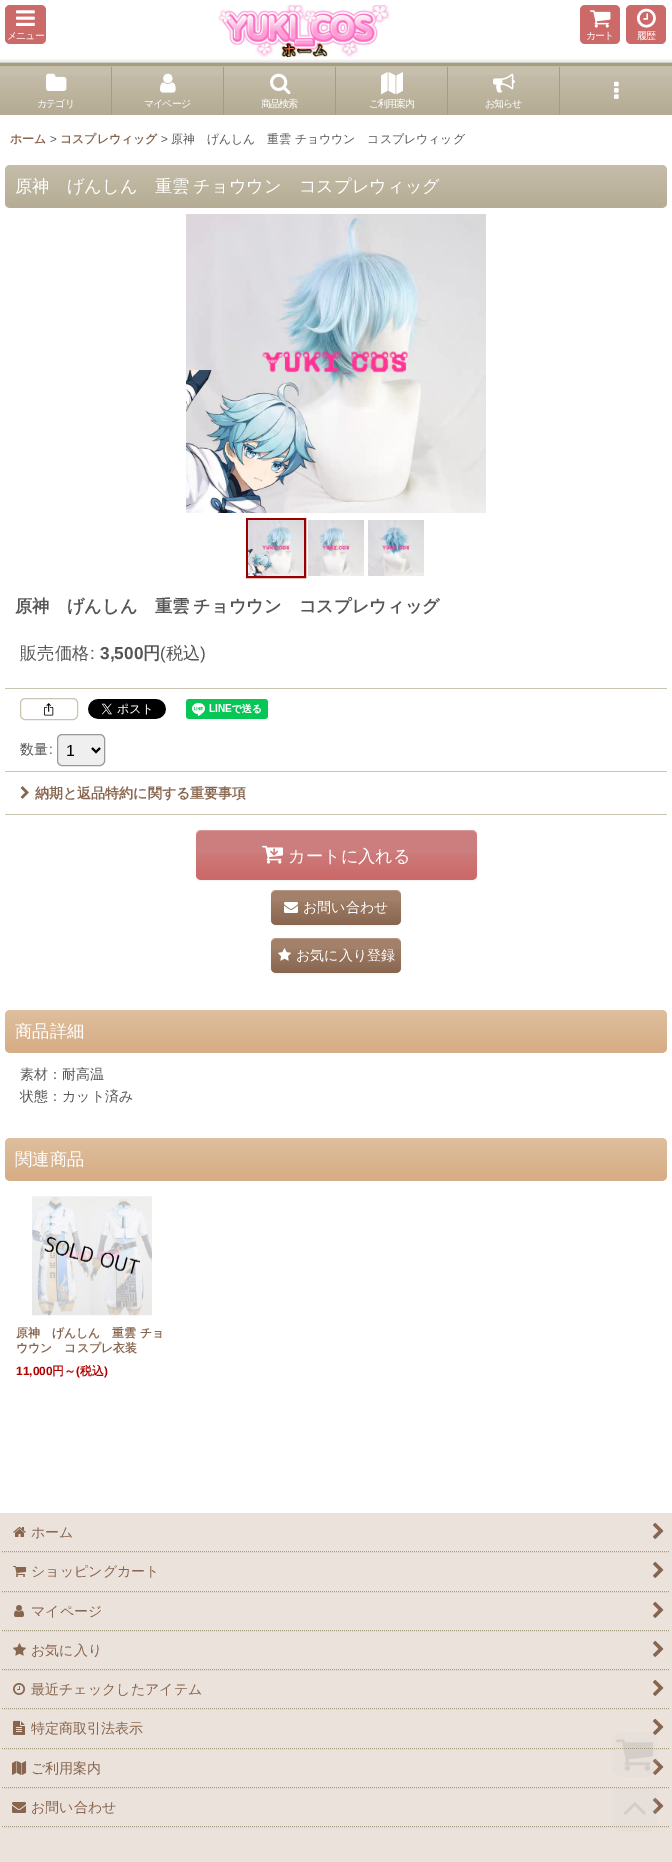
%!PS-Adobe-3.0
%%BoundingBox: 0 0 672 1862
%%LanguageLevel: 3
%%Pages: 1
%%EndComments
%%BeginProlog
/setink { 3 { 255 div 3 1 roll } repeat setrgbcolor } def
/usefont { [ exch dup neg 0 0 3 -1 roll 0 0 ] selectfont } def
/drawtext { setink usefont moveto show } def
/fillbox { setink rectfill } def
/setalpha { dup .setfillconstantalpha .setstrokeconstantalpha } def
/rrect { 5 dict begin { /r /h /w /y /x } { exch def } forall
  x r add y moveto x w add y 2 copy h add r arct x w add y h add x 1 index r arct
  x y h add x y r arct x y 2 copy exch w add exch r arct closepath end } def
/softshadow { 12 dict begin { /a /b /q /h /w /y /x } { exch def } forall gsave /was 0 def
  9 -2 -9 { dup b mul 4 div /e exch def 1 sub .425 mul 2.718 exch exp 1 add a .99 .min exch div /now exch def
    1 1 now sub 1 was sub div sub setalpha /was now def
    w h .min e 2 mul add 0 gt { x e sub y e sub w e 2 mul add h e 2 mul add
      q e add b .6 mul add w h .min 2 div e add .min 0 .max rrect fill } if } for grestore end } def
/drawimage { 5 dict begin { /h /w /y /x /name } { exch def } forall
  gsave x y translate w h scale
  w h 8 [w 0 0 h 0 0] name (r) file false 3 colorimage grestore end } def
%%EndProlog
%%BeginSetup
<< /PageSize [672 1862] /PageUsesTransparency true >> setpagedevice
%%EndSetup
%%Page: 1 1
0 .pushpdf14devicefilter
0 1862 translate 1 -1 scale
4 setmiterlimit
0 0 672 1862 255 255 255 fillbox
(assets/img1.rgb) 0 59 672 8 drawimage
204 105 105 setink
5 5 41 39 5 rrect fill
(assets/img2.rgb) 16 10 19 16 drawimage
/WenQuanYiZenHei-Medium 10 usefont
255 255 255 setink
7 39 moveto -1 0 (メニュー) ashow
(assets/img3.rgb) 218 5 172 52 drawimage
204 105 105 setink
580 5 40 39 5 rrect fill
(assets/img4.rgb) 590 10 21 18 drawimage
255 255 255 setink
586 39 moveto -1 0 (カート) ashow
204 105 105 setink
626 5 40 39 5 rrect fill
(assets/img5.rgb) 637 8 19 20 drawimage
255 255 255 setink
637 39 moveto -1 0 (履歴) ashow
0 67 111 8 198 191 172 fillbox
(assets/img6.rgb) 0 75 111 40 drawimage
111 67 1 48 166 157 128 fillbox
(assets/img7.rgb) 46 73 21 18 drawimage
255 255 255 setink
37 107 moveto -1 0 (カテゴリ) ashow
112 67 111 8 198 191 172 fillbox
(assets/img6.rgb) 112 75 111 40 drawimage
223 67 1 48 166 157 128 fillbox
(assets/img8.rgb) 160 73 16 20 drawimage
255 255 255 setink
144 107 moveto -1 0 (マイページ) ashow
224 67 111 8 198 191 172 fillbox
(assets/img6.rgb) 224 75 111 40 drawimage
335 67 1 48 166 157 128 fillbox
(assets/img9.rgb) 270 73 21 22 drawimage
255 255 255 setink
261 107 moveto -1 0 (商品検索) ashow
336 67 111 8 198 191 172 fillbox
(assets/img6.rgb) 336 75 111 40 drawimage
447 67 1 48 166 157 128 fillbox
(assets/img10.rgb) 381 72 22 23 drawimage
255 255 255 setink
369 107 moveto -1 0 (ご利用案内) ashow
448 67 111 8 198 191 172 fillbox
(assets/img6.rgb) 448 75 111 40 drawimage
559 67 1 48 166 157 128 fillbox
(assets/img11.rgb) 493 73 22 20 drawimage
255 255 255 setink
485 107 moveto -1 0 (お知らせ) ashow
560 67 112 8 198 191 172 fillbox
(assets/img12.rgb) 560 75 112 40 drawimage
(assets/img13.rgb) 614 81 5 18 drawimage
(ホーム) 10 143 /WenQuanYiZenHei-Bold 11.9 135 101 78 drawtext
(>) 50 143 /LiberationSans-Regular 11.9 85 85 85 drawtext
(コスプレウィッグ) 60 143 /WenQuanYiZenHei-Bold 11.9 135 101 78 drawtext
(>) 161 143 /LiberationSans-Regular 11.9 85 85 85 drawtext
(原神　げんしん　重雲 チョウウン　コスプレウィッグ) 171 143 /WenQuanYiZenHei-Medium 11.9 85 85 85 drawtext
(assets/img14.rgb) 5 165 662 43 drawimage
/WenQuanYiZenHei-Medium 17.25 usefont
255 255 255 setink
15 192 moveto -1 0 32 (原神　げんしん　重雲 チョウウン　コスプレウィッグ) widthshow
(assets/img15.rgb) 186 214 300 299 drawimage
153 0 0 setink
2 setlinewidth
247 519 58 58 rectstroke
(assets/img16.rgb) 248 520 56 56 drawimage
(assets/img17.rgb) 308 520 56 56 drawimage
(assets/img18.rgb) 368 520 56 56 drawimage
/WenQuanYiZenHei-Bold 17.25 usefont
85 85 85 setink
15 612 moveto -1 0 32 (原神　げんしん　重雲 チョウウン　コスプレウィッグ) widthshow
5 688 662 1 202 197 179 fillbox
(販売価格) 20 659 /WenQuanYiZenHei-Medium 17.25 85 85 85 drawtext
(:) 90 659 /LiberationSans-Regular 17.25 85 85 85 drawtext
(3,500) 100 659 /LiberationSans-Bold 17.25 85 85 85 drawtext
(円) 143 659 /WenQuanYiZenHei-Bold 17.25 85 85 85 drawtext
(\() 160 659 /LiberationSans-Regular 17.25 85 85 85 drawtext
(税込) 166 659 /WenQuanYiZenHei-Medium 17.25 85 85 85 drawtext
(\)) 200 659 /LiberationSans-Regular 17.25 85 85 85 drawtext
202 197 179 setink
1 setlinewidth
20.5 698.5 57 21 4.5 rrect stroke
(assets/img19.rgb) 44 703 10 13 drawimage
(assets/img20.rgb) 88 699 78 20 drawimage
(assets/img21.rgb) 186 699 82 20 drawimage
5 771 662 1 202 197 179 fillbox
(数量) 20 754 /WenQuanYiZenHei-Medium 14 85 85 85 drawtext
(:) 49 754 /LiberationSans-Regular 14 85 85 85 drawtext
239 239 239 setink
57.5 734.5 47 31 4.5 rrect gsave fill grestore
153 153 153 setink
stroke
0 0 0 setink
2 setlinewidth
92 748 moveto 96 752 lineto 100 748 lineto stroke
(1) 66 756 /LiberationSans-Regular 16 0 0 0 drawtext
5 814 662 1 202 197 179 fillbox
(assets/img22.rgb) 20 786 9 13 drawimage
(納期と返品特約に関する重要事項) 35 798 /WenQuanYiZenHei-Bold 14 135 101 78 drawtext
0 0 0 setink
196 831 281 50 5 1 0.05 softshadow
204 126 126 setink
196 830 281 50 5 rrect fill
(assets/img23.rgb) 196 853 281 27 drawimage
0.2 setalpha
255 255 255 setink
201 831 moveto 472 831 lineto 475 831 477 833 477 836 curveto 477 835 lineto 477 832 475 830 472 830 curveto 201 830 lineto 198 830 196 832 196 835 curveto 196 836 lineto 196 833 198 831 201 831 curveto closepath fill
1 setalpha
(assets/img24.rgb) 262 845 21 19 drawimage
(カートに入れる) 288 862 /WenQuanYiZenHei-Medium 17.25 255 255 255 drawtext
0 0 0 setink
271 891 130 35 5 1 0.05 softshadow
162 128 105 setink
271 890 130 35 5 rrect fill
(assets/img25.rgb) 271 901 130 24 drawimage
0.2 setalpha
255 255 255 setink
276 891 moveto 396 891 lineto 399 891 401 893 401 896 curveto 401 885 380 890 376 890 curveto 296 890 lineto 292 890 271 885 271 896 curveto 271 893 273 891 276 891 curveto closepath fill
1 setalpha
(assets/img26.rgb) 284 902 14 11 drawimage
(お問い合わせ) 303 912 /WenQuanYiZenHei-Medium 14 255 255 255 drawtext
0 0 0 setink
271 939 130 35 5 1 0.05 softshadow
162 128 105 setink
271 938 130 35 5 rrect fill
(assets/img25.rgb) 271 949 130 24 drawimage
0.2 setalpha
255 255 255 setink
276 939 moveto 396 939 lineto 399 939 401 941 401 944 curveto 401 933 380 938 376 938 curveto 296 938 lineto 292 938 271 933 271 944 curveto 271 941 273 939 276 939 curveto closepath fill
1 setalpha
(assets/img27.rgb) 278 948 13 13 drawimage
(お気に入り登録) 296 960 /WenQuanYiZenHei-Medium 14 255 255 255 drawtext
(assets/img28.rgb) 5 1010 662 43 drawimage
(商品詳細) 15 1037 /WenQuanYiZenHei-Medium 17.25 255 255 255 drawtext
(素材：耐高温) 20 1079 /WenQuanYiZenHei-Medium 14 85 85 85 drawtext
(状態：カット済み) 20 1101 /WenQuanYiZenHei-Medium 14 85 85 85 drawtext
(assets/img28.rgb) 5 1138 662 43 drawimage
(関連商品) 15 1165 /WenQuanYiZenHei-Medium 17.25 255 255 255 drawtext
(assets/img29.rgb) 32 1196 120 120 drawimage
(原神　げんしん　重雲 チョ) 16 1337 /WenQuanYiZenHei-Bold 11.9 135 101 78 drawtext
(ウウン　コスプレ衣装) 16 1352 /WenQuanYiZenHei-Bold 11.9 135 101 78 drawtext
(11,000) 16 1375 /LiberationSans-Bold 11.9 178 0 0 drawtext
(円～) 52 1375 /WenQuanYiZenHei-Bold 11.9 178 0 0 drawtext
(\() 76 1375 /LiberationSans-Bold 11.9 178 0 0 drawtext
(税込) 80 1375 /WenQuanYiZenHei-Bold 11.9 178 0 0 drawtext
(\)) 104 1375 /LiberationSans-Bold 11.9 178 0 0 drawtext
0 1513 672 349 235 226 220 fillbox
166 157 128 setink
1 setlinewidth
[1 1] 0 setdash
2 1551.5 moveto 670 1551.5 lineto stroke
(assets/img30.rgb) 13 1527 13 10 drawimage
(ホーム) 31 1537 /WenQuanYiZenHei-Medium 14 135 101 78 drawtext
(assets/img31.rgb) 653 1522 11 17 drawimage
166 157 128 setink
2 1591.5 moveto 670 1591.5 lineto stroke
(assets/img32.rgb) 13 1566 14 11 drawimage
(ショッピングカート) 31 1576 /WenQuanYiZenHei-Medium 14 135 101 78 drawtext
(assets/img31.rgb) 653 1561 11 17 drawimage
166 157 128 setink
2 1630.5 moveto 670 1630.5 lineto stroke
(assets/img33.rgb) 14 1605 10 12 drawimage
(マイページ) 31 1616 /WenQuanYiZenHei-Medium 14 135 101 78 drawtext
(assets/img31.rgb) 653 1601 11 17 drawimage
166 157 128 setink
2 1669.5 moveto 670 1669.5 lineto stroke
(assets/img34.rgb) 13 1643 13 13 drawimage
(お気に入り) 31 1655 /WenQuanYiZenHei-Medium 14 135 101 78 drawtext
(assets/img31.rgb) 653 1640 11 17 drawimage
166 157 128 setink
2 1708.5 moveto 670 1708.5 lineto stroke
(assets/img35.rgb) 13 1683 12 12 drawimage
(最近チェックしたアイテム) 31 1694 /WenQuanYiZenHei-Medium 14 135 101 78 drawtext
(assets/img31.rgb) 653 1679 11 17 drawimage
166 157 128 setink
2 1748.5 moveto 670 1748.5 lineto stroke
(assets/img36.rgb) 13 1720 13 15 drawimage
(特定商取引法表示) 31 1733 /WenQuanYiZenHei-Medium 14 135 101 78 drawtext
(assets/img31.rgb) 653 1718 11 17 drawimage
166 157 128 setink
2 1787.5 moveto 670 1787.5 lineto stroke
(assets/img37.rgb) 12 1761 15 14 drawimage
(ご利用案内) 31 1773 /WenQuanYiZenHei-Medium 14 135 101 78 drawtext
(assets/img31.rgb) 653 1758 11 17 drawimage
166 157 128 setink
2 1826.5 moveto 670 1826.5 lineto stroke
(assets/img38.rgb) 12 1802 15 11 drawimage
(お問い合わせ) 31 1812 /WenQuanYiZenHei-Medium 14 135 101 78 drawtext
(assets/img31.rgb) 653 1797 11 17 drawimage
0.13 setalpha
204 204 204 setink
612 1732 45 45 10 rrect fill
1 setalpha
(assets/img39.rgb) 616 1739 37 32 drawimage
638 1748 1 1 165 159 140 fillbox
0.13 setalpha
204 204 204 setink
612 1787 45 45 10 rrect fill
1 setalpha
(assets/img40.rgb) 624 1802 22 13 drawimage
.poppdf14devicefilter showpage
%%EOF
